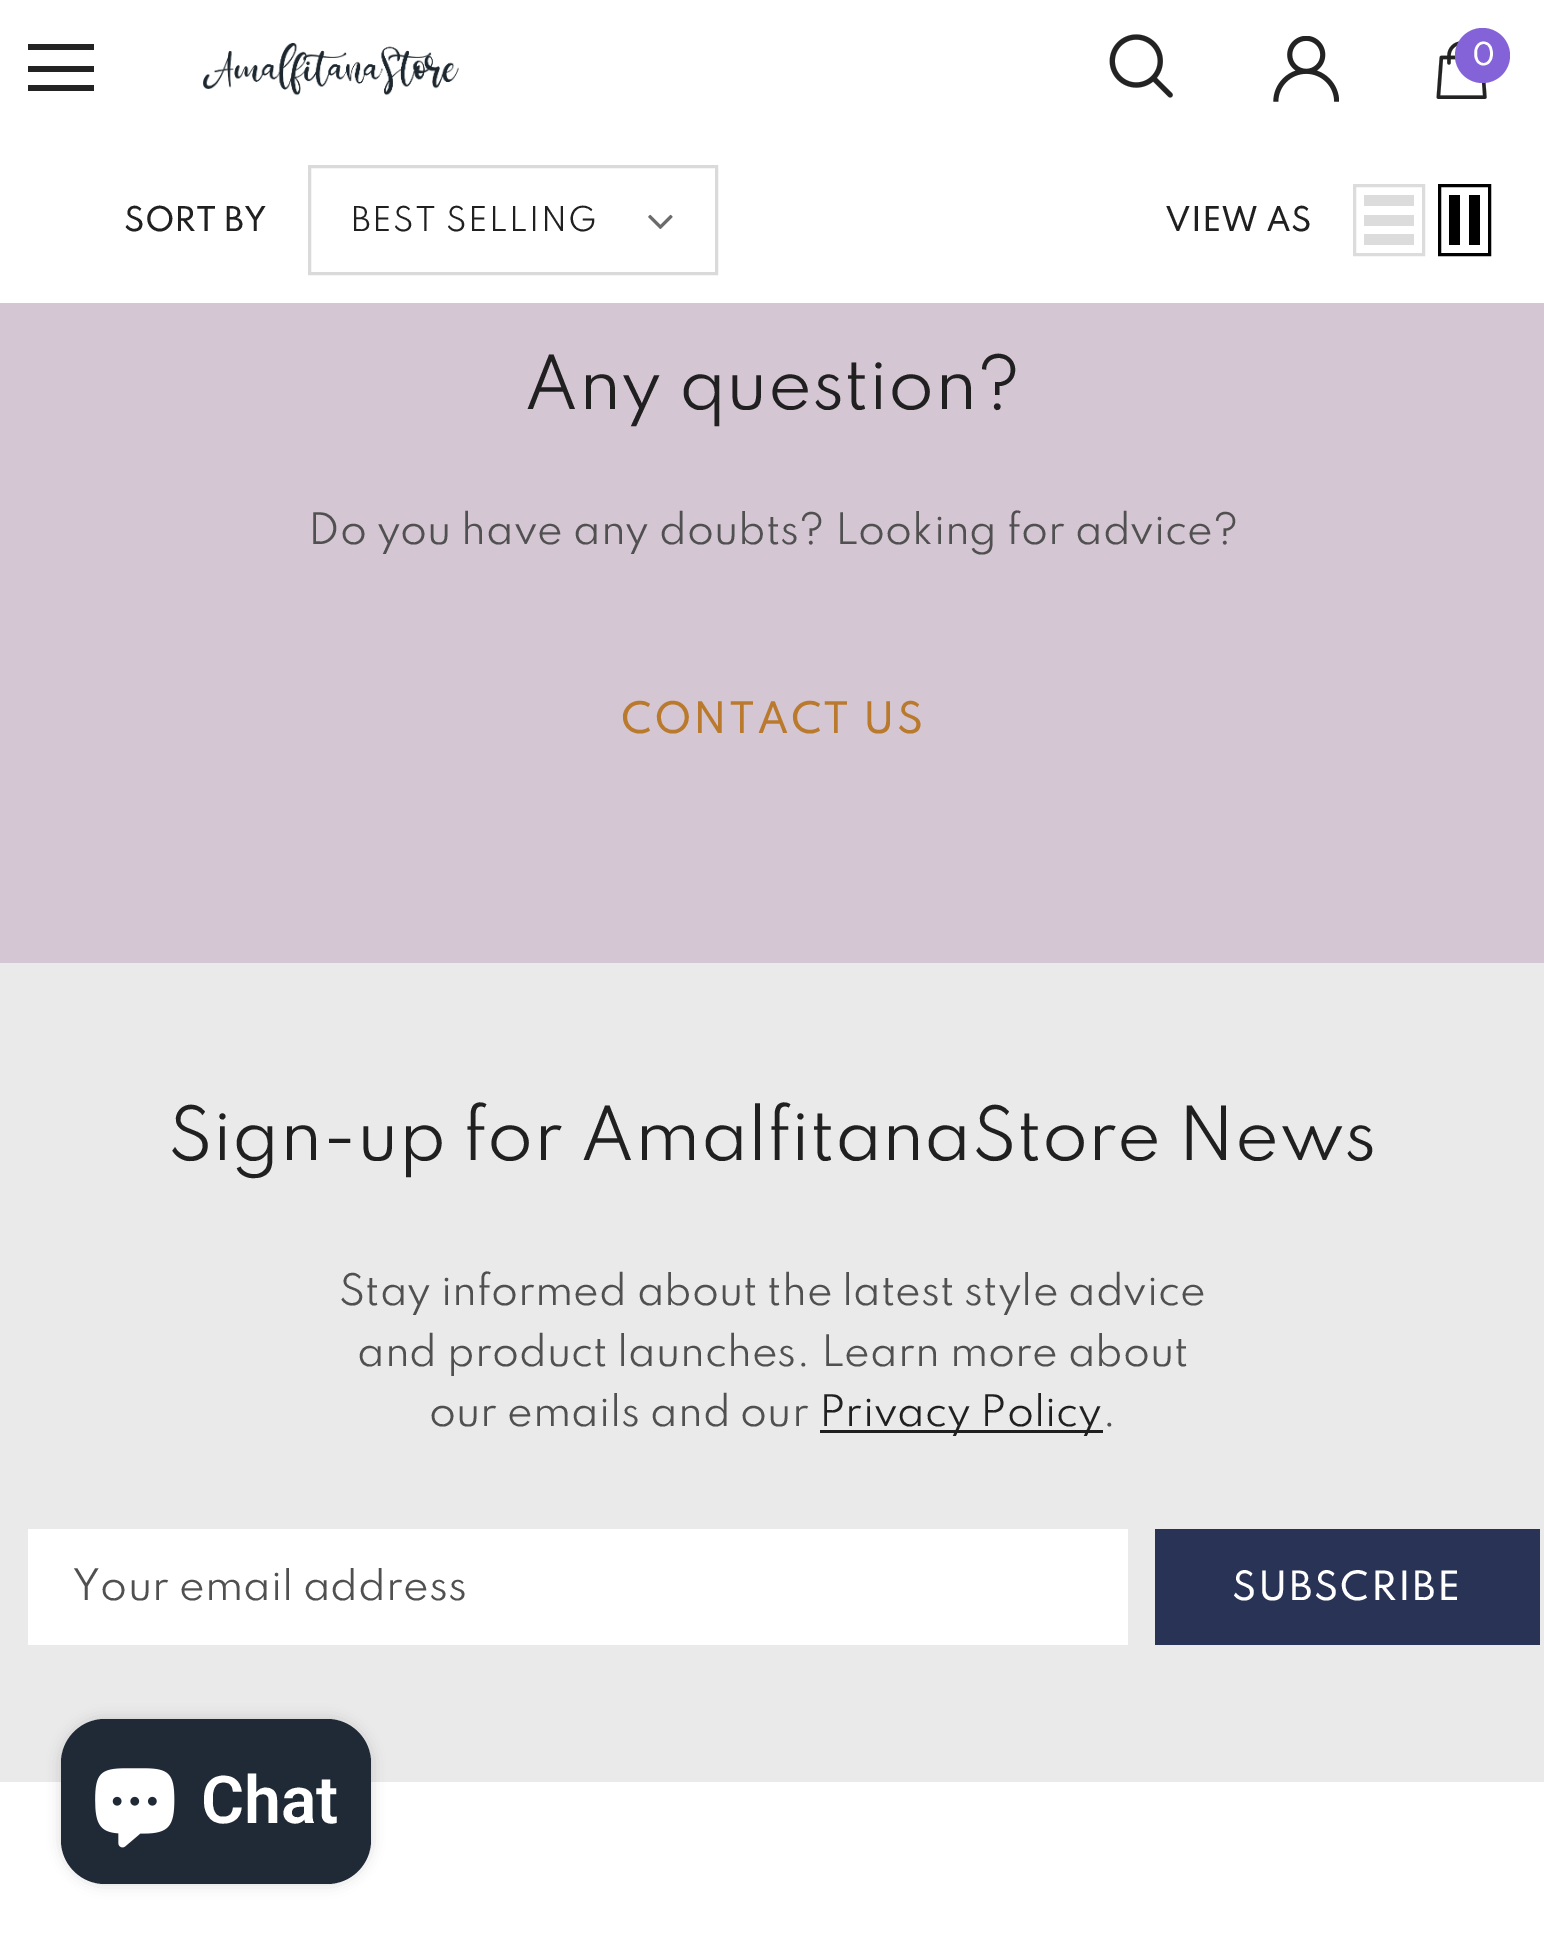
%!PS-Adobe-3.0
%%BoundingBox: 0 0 1544 1940
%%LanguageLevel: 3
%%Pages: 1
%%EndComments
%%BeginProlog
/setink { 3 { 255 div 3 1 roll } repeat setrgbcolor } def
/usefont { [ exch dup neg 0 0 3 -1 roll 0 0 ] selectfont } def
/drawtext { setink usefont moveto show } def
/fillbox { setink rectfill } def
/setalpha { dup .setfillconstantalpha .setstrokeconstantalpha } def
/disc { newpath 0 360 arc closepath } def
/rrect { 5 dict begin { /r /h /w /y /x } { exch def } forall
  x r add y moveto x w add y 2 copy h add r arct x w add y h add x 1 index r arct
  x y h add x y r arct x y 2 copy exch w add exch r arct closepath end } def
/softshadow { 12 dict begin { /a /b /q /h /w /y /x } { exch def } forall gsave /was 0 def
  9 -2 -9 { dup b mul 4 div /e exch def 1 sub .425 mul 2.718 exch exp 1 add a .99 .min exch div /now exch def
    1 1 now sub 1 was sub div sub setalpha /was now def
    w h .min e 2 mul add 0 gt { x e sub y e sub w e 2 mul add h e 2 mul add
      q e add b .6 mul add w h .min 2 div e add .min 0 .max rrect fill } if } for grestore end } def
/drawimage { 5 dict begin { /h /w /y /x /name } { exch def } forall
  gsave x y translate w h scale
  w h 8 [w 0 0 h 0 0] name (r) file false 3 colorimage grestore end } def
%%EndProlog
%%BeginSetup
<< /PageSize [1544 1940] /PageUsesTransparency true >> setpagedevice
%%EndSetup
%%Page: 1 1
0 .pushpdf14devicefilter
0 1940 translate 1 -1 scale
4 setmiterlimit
0 0 1544 1940 255 255 255 fillbox
28 44 66 6 35 35 35 fillbox
28 66 66 6 35 35 35 fillbox
28 85 66 6 35 35 35 fillbox
(assets/img1.rgb) 203 42 256 54 drawimage
(assets/img2.rgb) 1109 34 64 64 drawimage
(assets/img3.rgb) 1273 36 66 66 drawimage
(assets/img4.rgb) 1436 41 51 58 drawimage
132 99 216 setink
1482.5 55.5 27.5 disc fill
(0) 1472 65 /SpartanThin-Medium 28 255 255 255 drawtext
(SORT BY) 124 231 /SpartanThin-Medium 30.25 32 32 32 drawtext
218 218 218 setink
3 setlinewidth
309.5 166.5 407 107 rectstroke
/SpartanThin-Regular 30.25 usefont
32 32 32 setink
351 231 moveto 1.4 0 (BEST SELLING) ashow
(assets/img5.rgb) 648 214 25 16 drawimage
(VIEW AS) 1165 231 /SpartanThin-Medium 30.25 32 32 32 drawtext
220 220 220 setink
1354.5 185.5 69 69 rectstroke
1364 234 50 11 220 220 220 fillbox
1364 215 50 11 220 220 220 fillbox
1364 195 50 11 220 220 220 fillbox
0 0 0 setink
1439.5 185.5 50 69 rectstroke
1469 195 11 50 0 0 0 fillbox
1449 195 11 50 0 0 0 fillbox
0 303 1544 660 213 198 212 fillbox
(Any question?) 524 409 /SpartanThin-Regular 66 32 32 32 drawtext
(Do you have any doubts? Looking for advice?) 308 544 /SpartanThin-Regular 38.5 80 80 80 drawtext
/SpartanThin-Medium 38.5 usefont
186 122 45 setink
621 733 moveto 2 0 (CONTACT US) ashow
0 963 1544 819 234 234 234 fillbox
(Sign-up for AmalfitanaStore News) 168 1160 /SpartanThin-Regular 66 32 32 32 drawtext
(Stay informed about the latest style advice) 339 1305 /SpartanThin-Regular 38.5 80 80 80 drawtext
(and product launches. Learn more about) 357 1366 /SpartanThin-Regular 38.5 80 80 80 drawtext
(our emails and our) 429 1426 /SpartanThin-Regular 38.5 80 80 80 drawtext
820 1430 283 3 32 32 32 fillbox
(Privacy Policy) 819 1426 /SpartanThin-Regular 38.5 32 32 32 drawtext
(.) 1102 1426 /SpartanThin-Regular 38.5 80 80 80 drawtext
28 1529 1100 116 255 255 255 fillbox
gsave
72 1568 1012 46 rectclip
(Your email address) 72 1600 /SpartanThin-Regular 38.5 80 80 80 drawtext
grestore
1155 1529 385 116 41 51 85 fillbox
/SpartanThin-Medium 35.75 usefont
255 255 255 setink
1232 1600 moveto 1.75 0 (SUBSCRIBE) ashow
0 0 0 setink
61 1719 310 165 44 7 0.15 softshadow
32 42 54 setink
61 1719 310 165 44 rrect fill
(assets/img6.rgb) 95 1768 80 80 drawimage
(Chat) 201 1823 /Roboto-SemiBold 66 255 255 255 drawtext
.poppdf14devicefilter showpage
%%EOF
